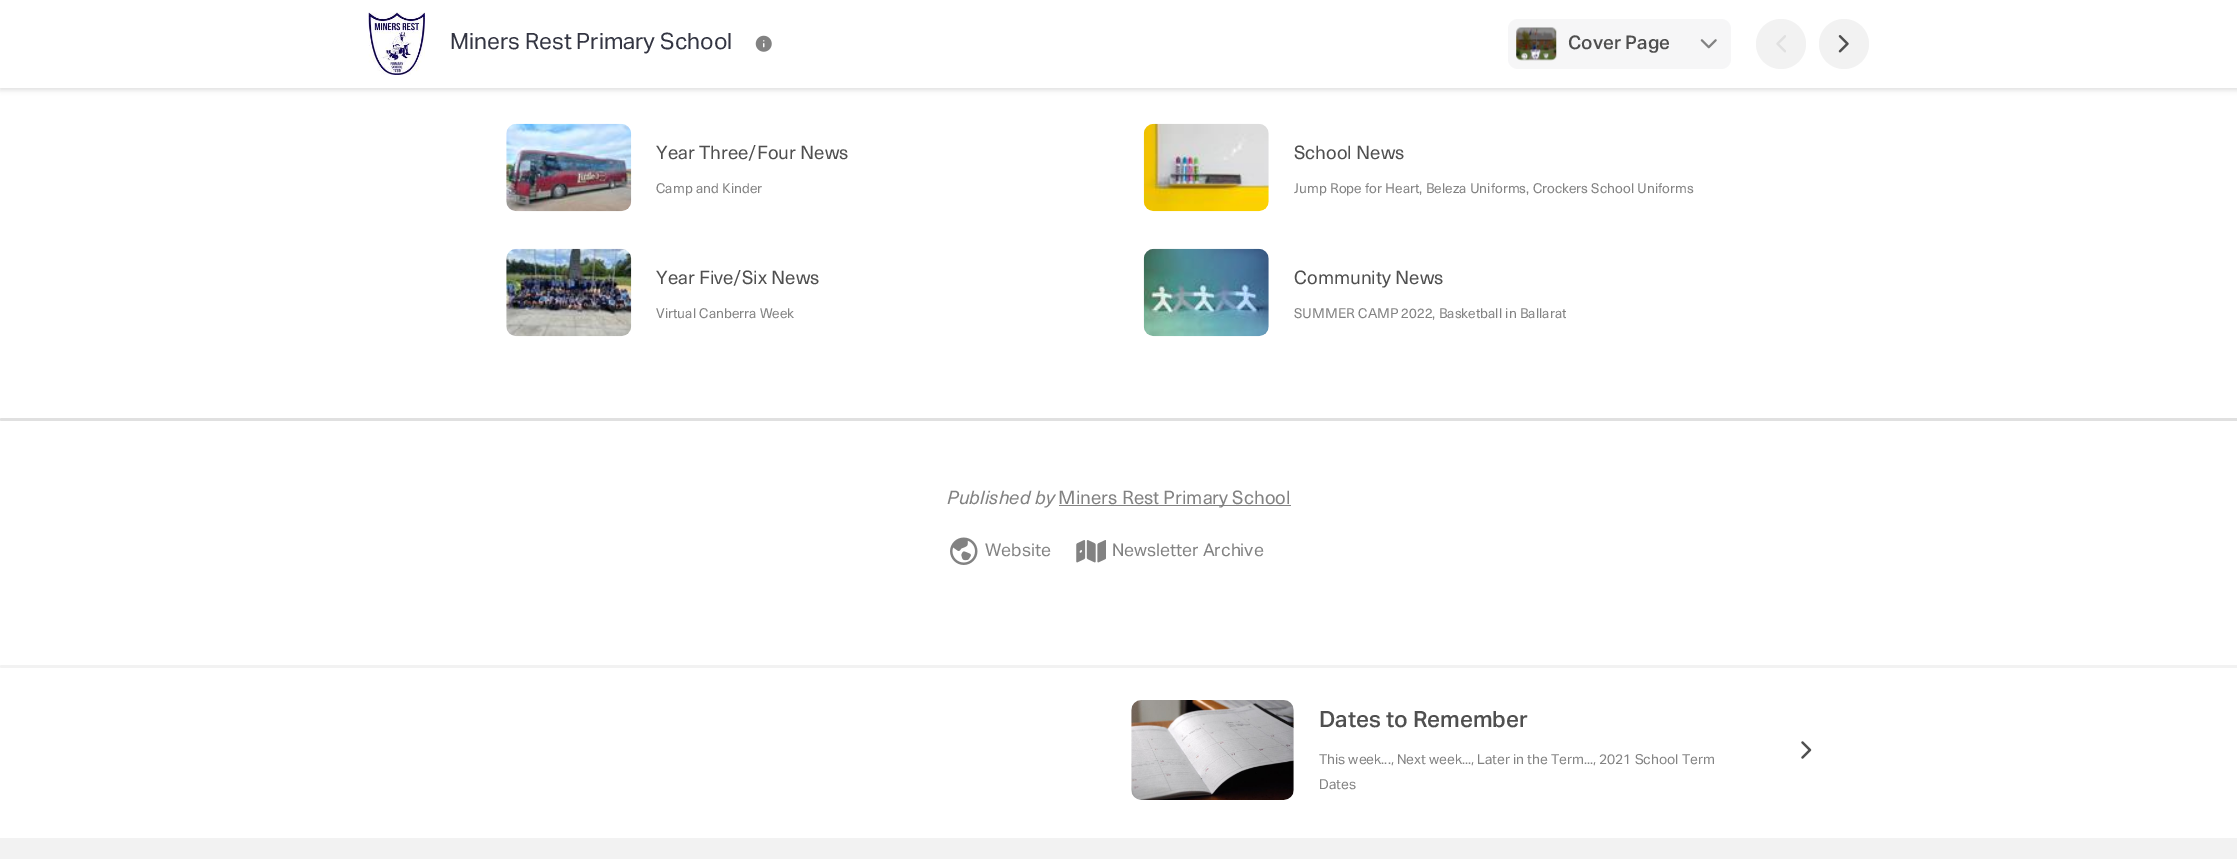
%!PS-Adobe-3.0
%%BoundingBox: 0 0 2237 859
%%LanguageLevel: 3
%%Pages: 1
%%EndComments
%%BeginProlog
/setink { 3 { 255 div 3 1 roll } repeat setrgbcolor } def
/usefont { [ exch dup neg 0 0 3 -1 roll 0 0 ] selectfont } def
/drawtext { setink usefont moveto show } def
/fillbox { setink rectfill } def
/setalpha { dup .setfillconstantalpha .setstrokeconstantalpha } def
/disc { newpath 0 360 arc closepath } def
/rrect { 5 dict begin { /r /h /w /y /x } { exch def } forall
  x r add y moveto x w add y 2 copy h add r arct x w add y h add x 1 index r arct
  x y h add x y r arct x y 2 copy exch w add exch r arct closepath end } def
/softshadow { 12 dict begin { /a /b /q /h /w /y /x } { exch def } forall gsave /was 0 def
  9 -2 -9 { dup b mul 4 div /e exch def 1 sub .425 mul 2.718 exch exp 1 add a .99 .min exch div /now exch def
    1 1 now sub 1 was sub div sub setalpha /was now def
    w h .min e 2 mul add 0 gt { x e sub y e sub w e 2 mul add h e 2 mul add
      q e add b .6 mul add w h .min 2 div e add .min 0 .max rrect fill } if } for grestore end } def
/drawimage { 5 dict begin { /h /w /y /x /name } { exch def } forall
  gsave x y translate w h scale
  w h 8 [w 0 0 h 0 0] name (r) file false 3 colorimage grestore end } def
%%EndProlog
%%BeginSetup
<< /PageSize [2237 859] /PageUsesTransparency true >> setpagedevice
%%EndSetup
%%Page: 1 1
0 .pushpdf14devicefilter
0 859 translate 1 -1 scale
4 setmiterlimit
0 0 2237 859 255 255 255 fillbox
0 0 0 setink
0 3 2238 87 0 2.5 0.12 softshadow
0 0 2237 88 255 255 255 fillbox
(assets/img1.rgb) 368 12 57 63 drawimage
(Miners Rest Primary School) 450 49 /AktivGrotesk-Regular 22.5 51 53 66 drawtext
(assets/img2.rgb) 755 35 17 17 drawimage
246 246 247 setink
1508 19 223 50 10 rrect fill
(assets/img3.rgb) 1516 27 41 34 drawimage
(Cover Page) 1568 49 /AktivGrotesk-Medium 18.75 79 79 79 drawtext
(assets/img4.rgb) 1700 39 17 10 drawimage
242 242 242 setink
1781 44 25 disc fill
(assets/img5.rgb) 1776 35 10 18 drawimage
1844 44 25 disc fill
(assets/img6.rgb) 1838 35 11 18 drawimage
(assets/img7.rgb) 506 123 126 89 drawimage
(Year Three/Four News) 656 159 /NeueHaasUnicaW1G-Regular 18.75 79 79 79 drawtext
(Camp and Kinder) 656 193 /NeueHaasUnicaW1G-Regular 13.75 130 130 130 drawtext
(assets/img8.rgb) 1143 123 126 89 drawimage
(School News) 1294 159 /NeueHaasUnicaW1G-Regular 18.75 79 79 79 drawtext
(Jump Rope for Heart, Beleza Uniforms, Crockers School Uniforms) 1294 193 /NeueHaasUnicaW1G-Regular 13.75 130 130 130 drawtext
(assets/img9.rgb) 506 248 126 89 drawimage
(Year Five/Six News) 656 284 /NeueHaasUnicaW1G-Regular 18.75 79 79 79 drawtext
(Virtual Canberra Week) 656 318 /NeueHaasUnicaW1G-Regular 13.75 130 130 130 drawtext
(assets/img10.rgb) 1143 248 126 89 drawimage
(Community News) 1294 284 /NeueHaasUnicaW1G-Regular 18.75 79 79 79 drawtext
(SUMMER CAMP 2022, Basketball in Ballarat) 1294 318 /NeueHaasUnicaW1G-Regular 13.75 130 130 130 drawtext
224 224 224 setink
0 418 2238 3 1.5 rrect fill
(Published by) 947 504 /NeueHaasUnicaW1G-Italic 18.75 130 130 130 drawtext
1059 505 232 1 130 130 130 fillbox
(Miners Rest Primary School) 1058 504 /NeueHaasUnicaW1G-Regular 18.75 130 130 130 drawtext
(assets/img11.rgb) 950 537 28 28 drawimage
(Website) 985 556 /AktivGrotesk-Regular 17.5 130 130 130 drawtext
(assets/img12.rgb) 1076 540 30 23 drawimage
(Newsletter Archive) 1112 556 /AktivGrotesk-Regular 17.5 130 130 130 drawtext
242 242 242 setink
0 665 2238 3 1.5 rrect fill
(assets/img13.rgb) 1131 700 163 100 drawimage
(Dates to Remember) 1319 727 /AktivGrotesk-Medium 22.5 79 79 79 drawtext
(This week..., Next week..., Later in the Term..., 2021 School Term) 1319 764 /AktivGrotesk-Regular 13.75 130 130 130 drawtext
(Dates) 1319 789 /AktivGrotesk-Regular 13.75 130 130 130 drawtext
(assets/img14.rgb) 1801 741 11 18 drawimage
0 838 2237 21 242 242 242 fillbox
.poppdf14devicefilter showpage
%%EOF
